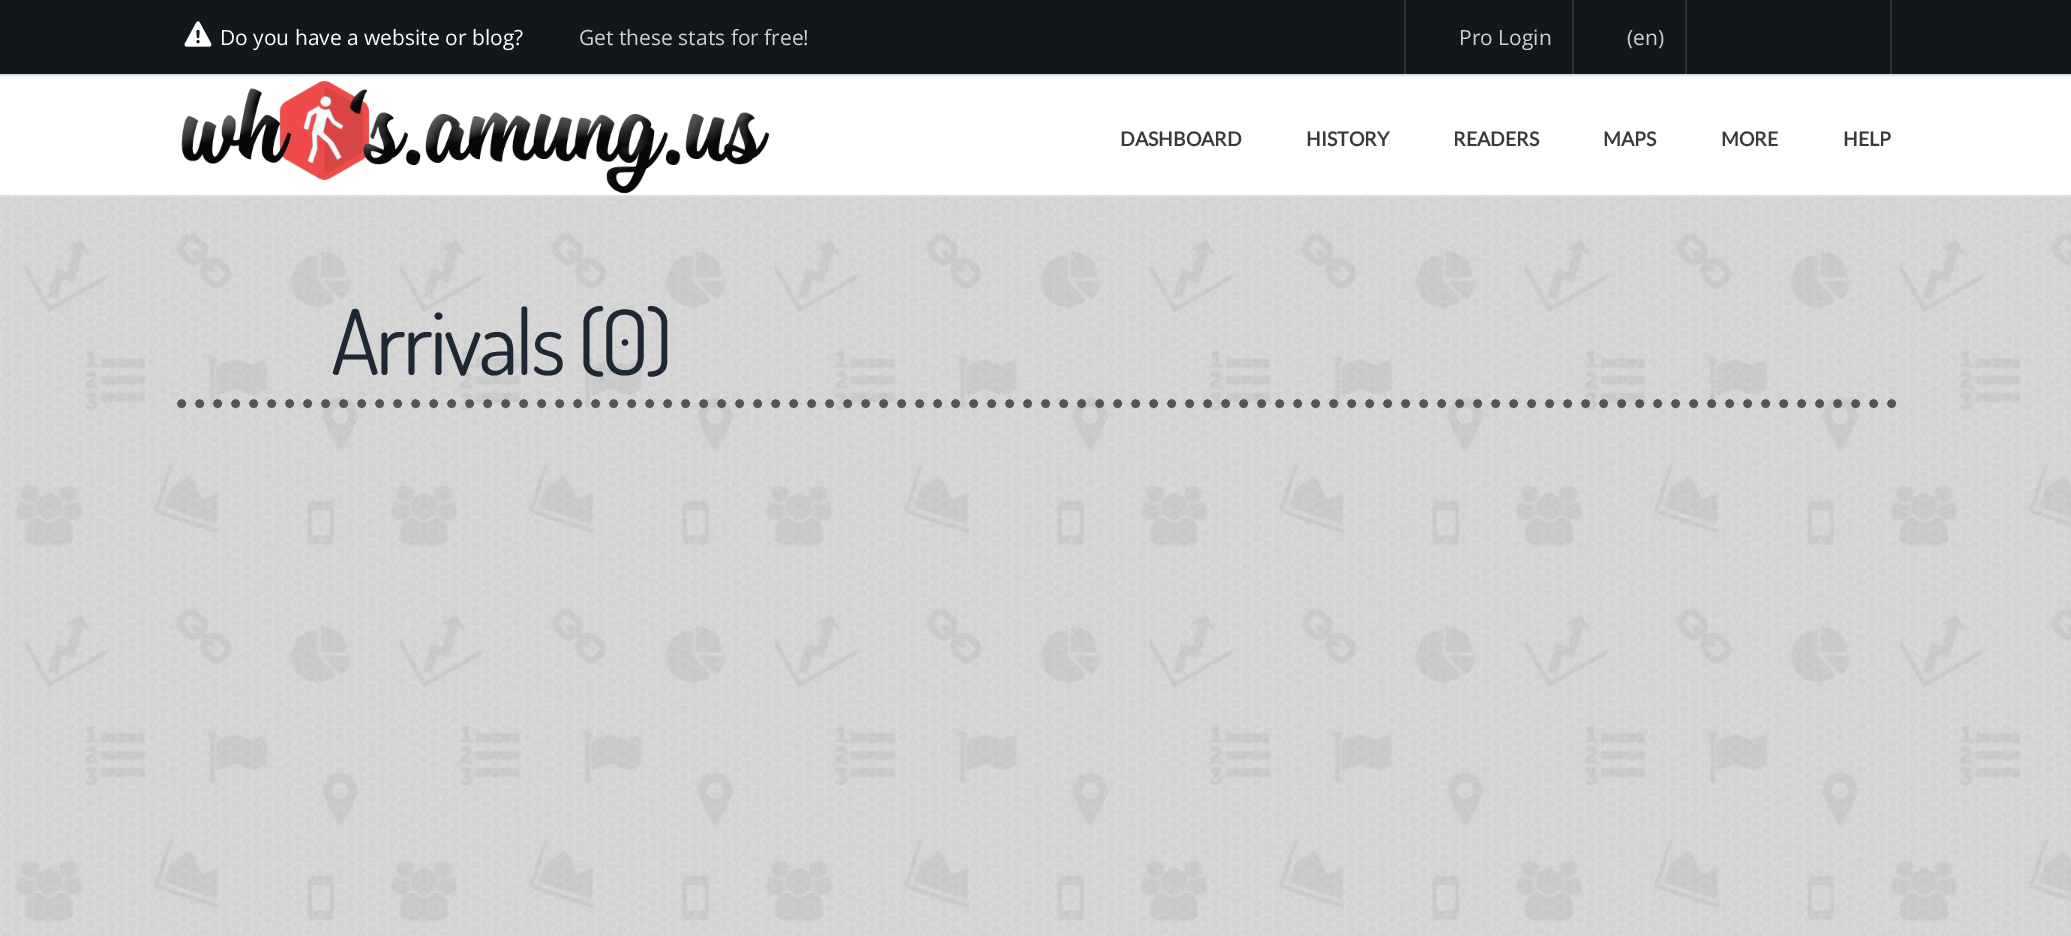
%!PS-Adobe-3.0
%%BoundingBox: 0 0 2071 936
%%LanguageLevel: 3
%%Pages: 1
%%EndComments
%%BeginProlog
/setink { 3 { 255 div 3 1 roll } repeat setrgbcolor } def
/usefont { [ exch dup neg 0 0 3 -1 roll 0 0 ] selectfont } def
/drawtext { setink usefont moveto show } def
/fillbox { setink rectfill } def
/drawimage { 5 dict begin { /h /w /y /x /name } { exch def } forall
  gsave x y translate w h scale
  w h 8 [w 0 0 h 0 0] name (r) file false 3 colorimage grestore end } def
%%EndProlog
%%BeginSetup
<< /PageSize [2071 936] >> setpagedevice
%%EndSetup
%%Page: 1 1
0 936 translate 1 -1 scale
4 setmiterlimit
0 0 2071 936 255 255 255 fillbox
0 0 2071 74 20 23 25 fillbox
0 74 2071 2 221 221 221 fillbox
(assets/img1.rgb) 184 21 28 26 drawimage
(Do you have a website or blog?) 220 45 /OpenSans-Regular 21 255 255 255 drawtext
(Get these stats for free!) 579 45 /OpenSans-Regular 21 208 209 209 drawtext
1404 0 2 74 42 48 52 fillbox
(Pro Login) 1459 45 /OpenSans-Regular 21 208 209 209 drawtext
1572 0 2 74 42 48 52 fillbox
(\(en\)) 1627 45 /OpenSans-Regular 21 208 209 209 drawtext
1890 0 2 74 42 48 52 fillbox
1685 0 2 74 42 48 52 fillbox
0 195 2071 2 222 222 222 fillbox
(assets/img2.rgb) 181 81 589 113 drawimage
(DASHBOARD) 1120 146 /Lato-Bold 19.5 57 57 57 drawtext
(HISTORY) 1306 146 /Lato-Bold 19.5 57 57 57 drawtext
(READERS) 1453 146 /Lato-Bold 19.5 57 57 57 drawtext
(MAPS) 1603 146 /Lato-Bold 19.5 57 57 57 drawtext
(MORE) 1721 146 /Lato-Bold 19.5 57 57 57 drawtext
(HELP) 1843 146 /Lato-Bold 19.5 57 57 57 drawtext
(assets/img3.rgb) 0 197 2071 739 drawimage
85 85 85 setink
9 setlinewidth
1 setlinecap
[0 18] 0 setdash
181.5 403.5 moveto 1891.5 403.5 lineto stroke
/Dosis-Regular 90 usefont
30 39 51 setink
331 375 moveto -3 0 (Arrivals \(0\)) ashow
showpage
%%EOF
